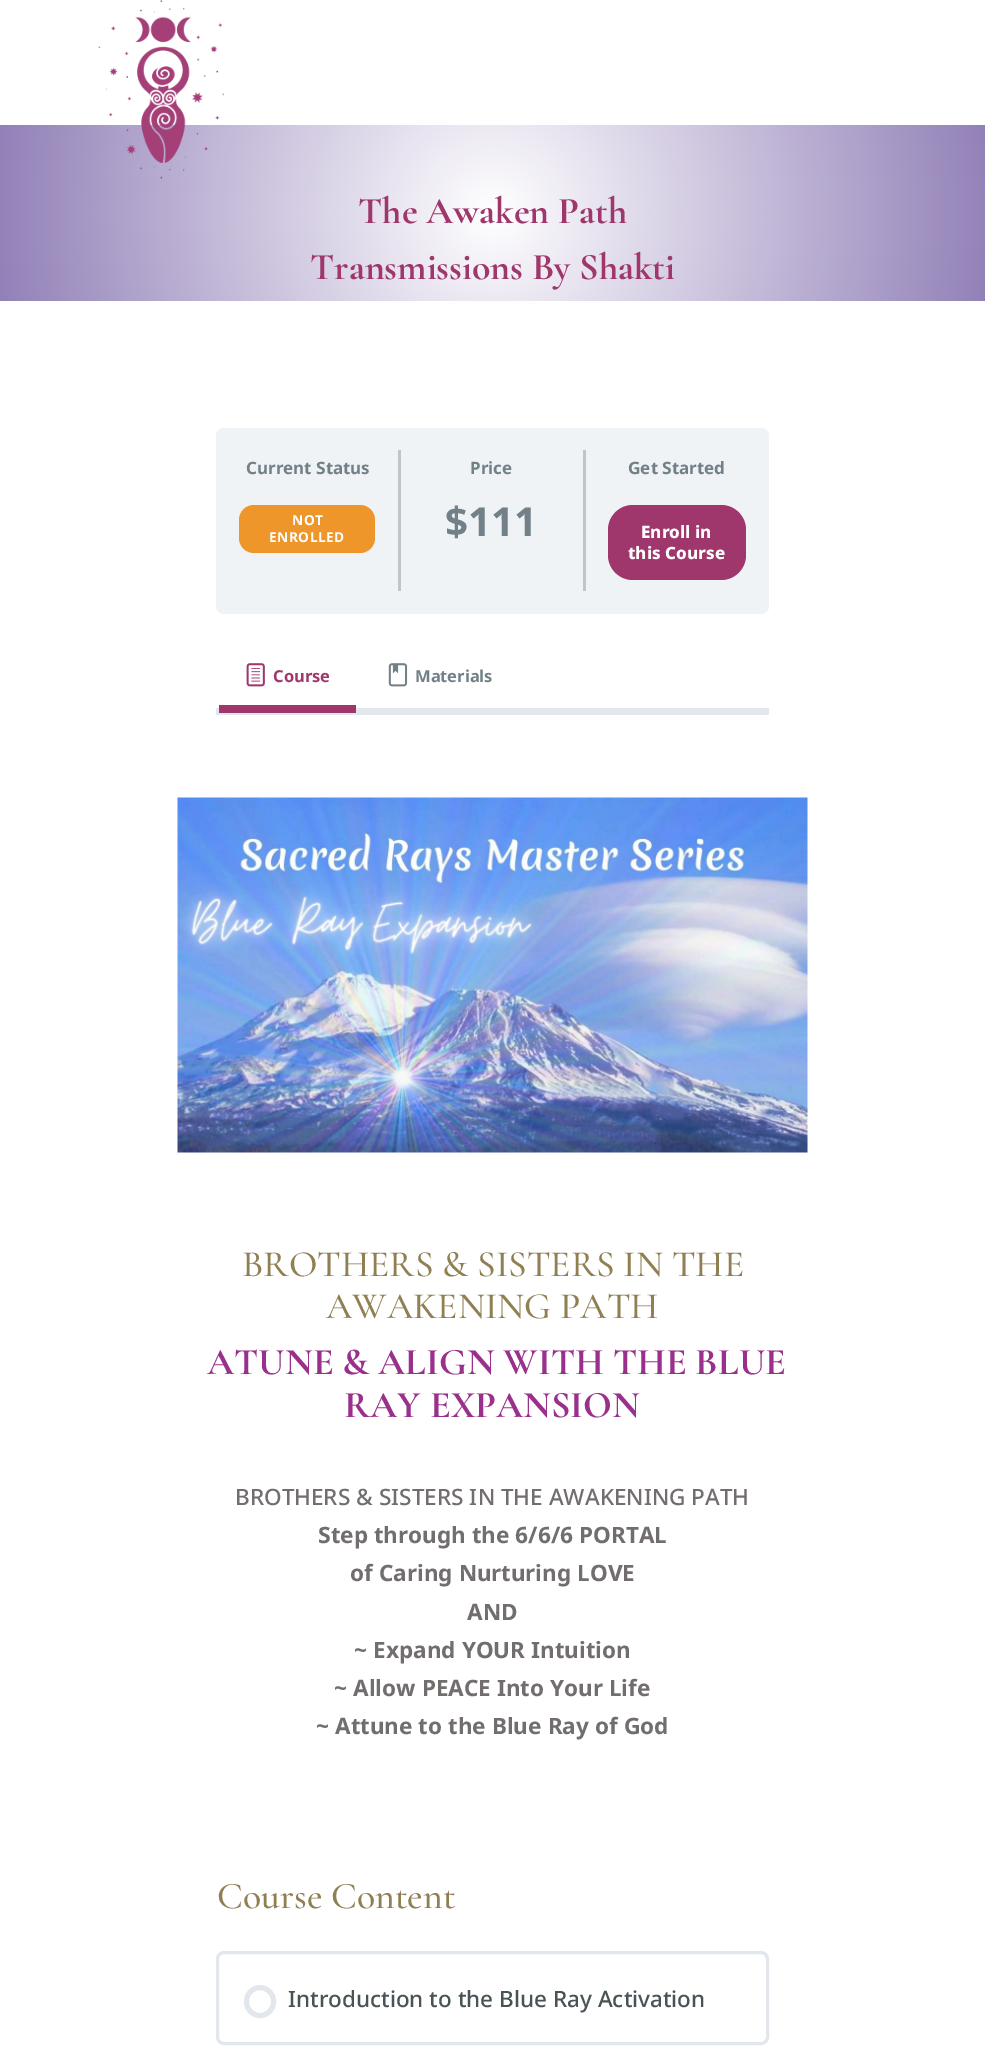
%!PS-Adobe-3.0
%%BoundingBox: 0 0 985 2049
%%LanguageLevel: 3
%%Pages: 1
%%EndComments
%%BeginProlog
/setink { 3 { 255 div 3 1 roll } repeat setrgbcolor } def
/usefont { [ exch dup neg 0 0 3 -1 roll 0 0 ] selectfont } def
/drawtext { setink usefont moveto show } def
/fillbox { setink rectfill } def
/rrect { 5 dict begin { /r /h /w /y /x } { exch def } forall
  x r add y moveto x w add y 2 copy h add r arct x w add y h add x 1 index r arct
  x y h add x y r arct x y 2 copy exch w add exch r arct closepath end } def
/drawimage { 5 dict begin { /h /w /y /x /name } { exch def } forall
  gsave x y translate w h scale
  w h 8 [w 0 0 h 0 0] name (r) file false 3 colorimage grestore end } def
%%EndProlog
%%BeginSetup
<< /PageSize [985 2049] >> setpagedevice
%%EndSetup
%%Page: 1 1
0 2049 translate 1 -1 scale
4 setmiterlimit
0 0 985 2049 255 255 255 fillbox
gsave 0 125 moveto 985 125 lineto 985 301 lineto 0 301 lineto closepath clip newpath 493 213 translate 500 500 scale
<< /ShadingType 3 /ColorSpace /DeviceRGB /Coords [0 0 0 0 0 1] /Extend [true true] /Function << /FunctionType 2 /Domain [0 1] /C0 [1 1 1] /C1 [0.573 0.506 0.722] /N 1 >> >> shfill grestore
(assets/img1.rgb) 98 0 126 179 drawimage
(The Awaken Path) 358 223 /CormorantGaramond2-Light 37.8 159 55 108 drawtext
(Transmissions By Shakti) 310 279 /CormorantGaramond2-Light 37.8 159 55 108 drawtext
240 243 246 setink
216 428 553 186 8 rrect fill
398 450 3 141 190 197 203 fillbox
(Current Status) 246 474 /NotoSansCherokee-Bold 17 114 129 136 drawtext
238 150 42 setink
239 505 136 48 15 rrect fill
/NotoSansCherokee-Bold 13.75 usefont
255 255 255 setink
292 525 moveto 0.5 0 (NOT) ashow
269 542 moveto 0.5 0 (ENROLLED) ashow
583 450 3 141 190 197 203 fillbox
(Price) 470 474 /NotoSansCherokee-Bold 17 114 129 136 drawtext
($111) 445 536 /NotoSansCherokee-Bold 40 114 129 136 drawtext
(Get Started) 628 474 /NotoSansCherokee-Bold 17 114 129 136 drawtext
159 55 108 setink
608 505 138 75 25 rrect fill
(Enroll in) 641 538 /NotoSansCherokee-ExtraBold 17 255 255 255 drawtext
(this Course) 628 559 /NotoSansCherokee-ExtraBold 17 255 255 255 drawtext
(assets/img2.rgb) 246 663 19 24 drawimage
(Course) 273 682 /NotoSansCherokee-Bold 16.5 159 55 108 drawtext
216 708 553 7 226 231 237 fillbox
219 705 137 8 159 55 108 fillbox
(assets/img3.rgb) 388 663 20 24 drawimage
(Materials) 415 682 /NotoSansCherokee-Bold 16.5 114 129 136 drawtext
(assets/img4.rgb) 177 797 631 356 drawimage
(BROTHERS & SISTERS IN THE) 242 1276 /CormorantGaramond-Light 37.25 144 127 83 drawtext
(AWAKENING PATH) 326 1318 /CormorantGaramond-Light 37.25 144 127 83 drawtext
(ATUNE & ALIGN WITH THE BLUE) 207 1374 /CormorantGaramond2-Light 37.8 154 48 140 drawtext
(RAY EXPANSION) 344 1417 /CormorantGaramond2-Light 37.8 154 48 140 drawtext
(BROTHERS & SISTERS IN THE AWAKENING PATH) 235 1505 /NotoSansCherokee-Medium 22.5 114 110 109 drawtext
(Step through the 6/6/6 PORTAL) 318 1543 /NotoSansCherokee-Bold 22.5 114 110 109 drawtext
(of Caring Nurturing LOVE) 350 1581 /NotoSansCherokee-Bold 22.5 114 110 109 drawtext
(AND) 467 1620 /NotoSansCherokee-Bold 22.5 114 110 109 drawtext
(~ Expand YOUR Intuition) 354 1658 /NotoSansCherokee-Bold 22.5 114 110 109 drawtext
(~ Allow PEACE Into Your Life) 334 1696 /NotoSansCherokee-Bold 22.5 114 110 109 drawtext
(~ Attune to the Blue Ray of God) 316 1734 /NotoSansCherokee-Bold 22.5 114 110 109 drawtext
(Course Content) 217 1908 /CormorantGaramond-Light 37.8 144 127 83 drawtext
226 231 237 setink
3 setlinewidth
217.5 1952.5 550 91 6.5 rrect stroke
5 setlinewidth
246.5 1987.5 27 28 13.5 rrect stroke
(Introduction to the Blue Ray Activation) 288 2007 /NotoSansCherokee-Medium 22.5 73 82 85 drawtext
showpage
%%EOF
